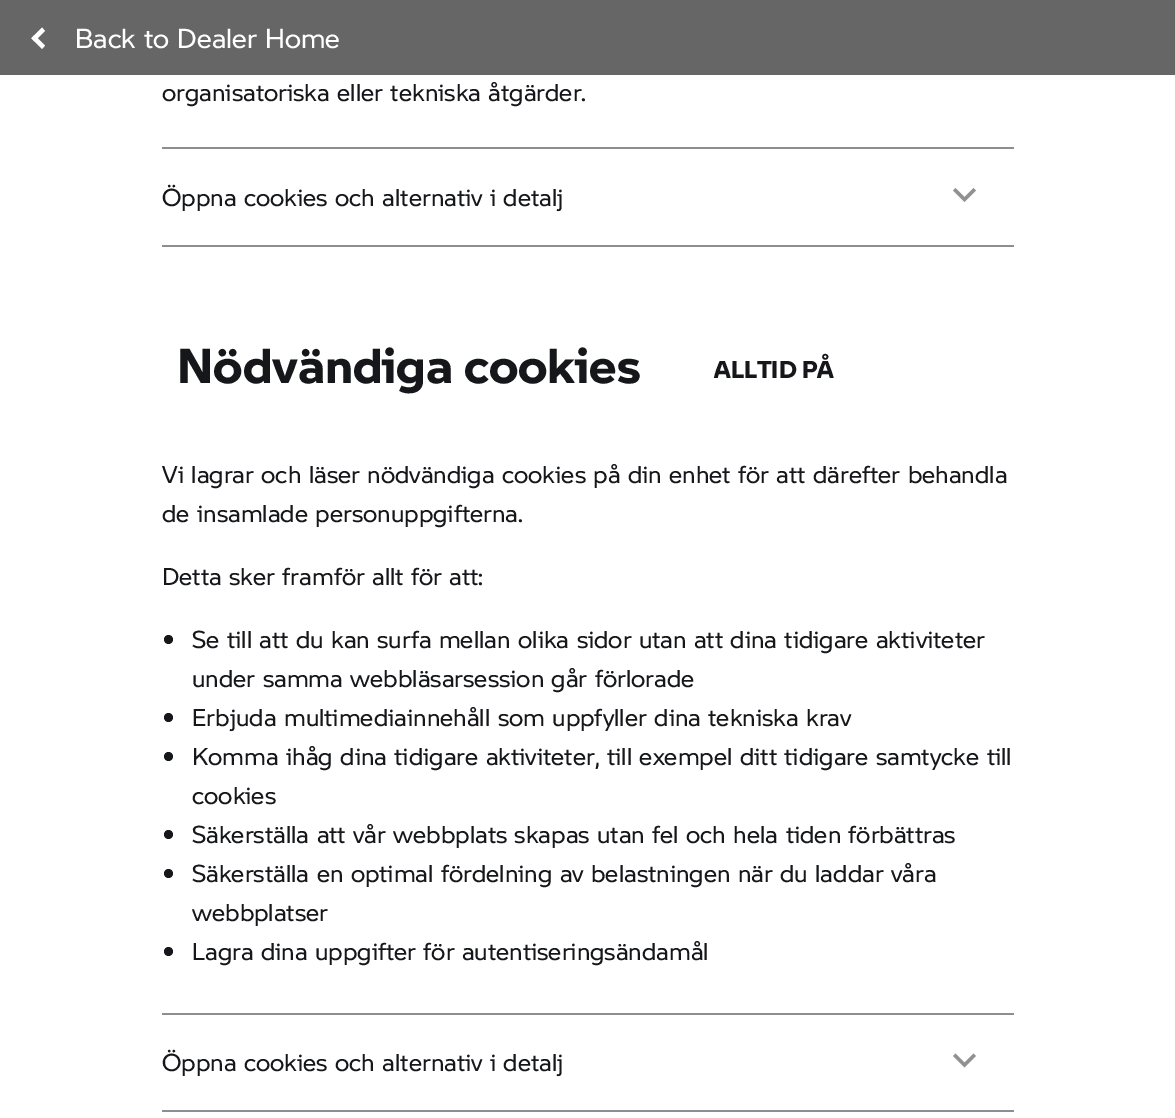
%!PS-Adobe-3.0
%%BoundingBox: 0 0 1175 1118
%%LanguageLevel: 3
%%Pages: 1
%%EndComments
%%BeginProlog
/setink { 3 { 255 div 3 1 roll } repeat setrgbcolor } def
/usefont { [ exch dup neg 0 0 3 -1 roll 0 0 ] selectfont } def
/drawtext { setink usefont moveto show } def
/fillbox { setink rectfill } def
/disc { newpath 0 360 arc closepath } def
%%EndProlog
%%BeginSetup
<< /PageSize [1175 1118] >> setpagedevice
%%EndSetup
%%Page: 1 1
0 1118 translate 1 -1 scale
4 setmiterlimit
0 0 1175 1118 255 255 255 fillbox
0 0 1175 75 102 102 102 fillbox
255 255 255 setink
45 31 moveto 34.5 41.5 lineto 31.5 38 lineto 42 27.5 lineto closepath fill
34.5 35 moveto 45 45.5 lineto 42 49 lineto 31.5 38.5 lineto closepath fill
(Back to Dealer Home) 75 48 /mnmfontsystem-Regular 27 255 255 255 drawtext
(organisatoriska eller tekniska åtgärder.) 162 101 /mnmfontsystem-Regular 24 22 23 26 drawtext
162 147 852 2 142 142 142 fillbox
162 245 852 2 142 142 142 fillbox
(Öppna cookies och alternativ i detalj) 162 206 /mnmfontsystem-Regular 24 22 23 26 drawtext
145 145 145 setink
976 190.5 moveto 973.5 188 lineto 964.5 197 lineto 955.5 188 lineto 953 190.5 lineto 964.5 202 lineto closepath fill
(Nödvändiga cookies) 177 383 /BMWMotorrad-Bold 48 22 23 26 drawtext
(ALLTID PÅ) 714 378 /BMWMotorrad-Bold 24 22 23 26 drawtext
(Vi lagrar och läser nödvändiga cookies på din enhet för att därefter behandla) 162 483 /mnmfontsystem-Regular 24 22 23 26 drawtext
(de insamlade personuppgifterna.) 162 522 /mnmfontsystem-Regular 24 22 23 26 drawtext
(Detta sker framför allt för att:) 162 585 /mnmfontsystem-Regular 24 22 23 26 drawtext
168.5 639.5 4.5 disc fill
(Se till att du kan surfa mellan olika sidor utan att dina tidigare aktiviteter) 192 648 /mnmfontsystem-Regular 24 22 23 26 drawtext
(under samma webbläsarsession går förlorade) 192 687 /mnmfontsystem-Regular 24 22 23 26 drawtext
168.5 717.5 4.5 disc fill
(Erbjuda multimediainnehåll som uppfyller dina tekniska krav) 192 726 /mnmfontsystem-Regular 24 22 23 26 drawtext
168.5 756.5 4.5 disc fill
(Komma ihåg dina tidigare aktiviteter, till exempel ditt tidigare samtycke till) 192 765 /mnmfontsystem-Regular 24 22 23 26 drawtext
(cookies) 192 804 /mnmfontsystem-Regular 24 22 23 26 drawtext
168.5 834.5 4.5 disc fill
(Säkerställa att vår webbplats skapas utan fel och hela tiden förbättras) 192 843 /mnmfontsystem-Regular 24 22 23 26 drawtext
168.5 873.5 4.5 disc fill
(Säkerställa en optimal fördelning av belastningen när du laddar våra) 192 882 /mnmfontsystem-Regular 24 22 23 26 drawtext
(webbplatser) 192 921 /mnmfontsystem-Regular 24 22 23 26 drawtext
168.5 951.5 4.5 disc fill
(Lagra dina uppgifter för autentiseringsändamål) 192 960 /mnmfontsystem-Regular 24 22 23 26 drawtext
162 1013 852 2 142 142 142 fillbox
162 1110 852 2 142 142 142 fillbox
(Öppna cookies och alternativ i detalj) 162 1071 /mnmfontsystem-Regular 24 22 23 26 drawtext
145 145 145 setink
976 1056 moveto 973.5 1053.5 lineto 964.5 1062.5 lineto 955.5 1053.5 lineto 953 1056 lineto 964.5 1067.5 lineto closepath fill
showpage
%%EOF
